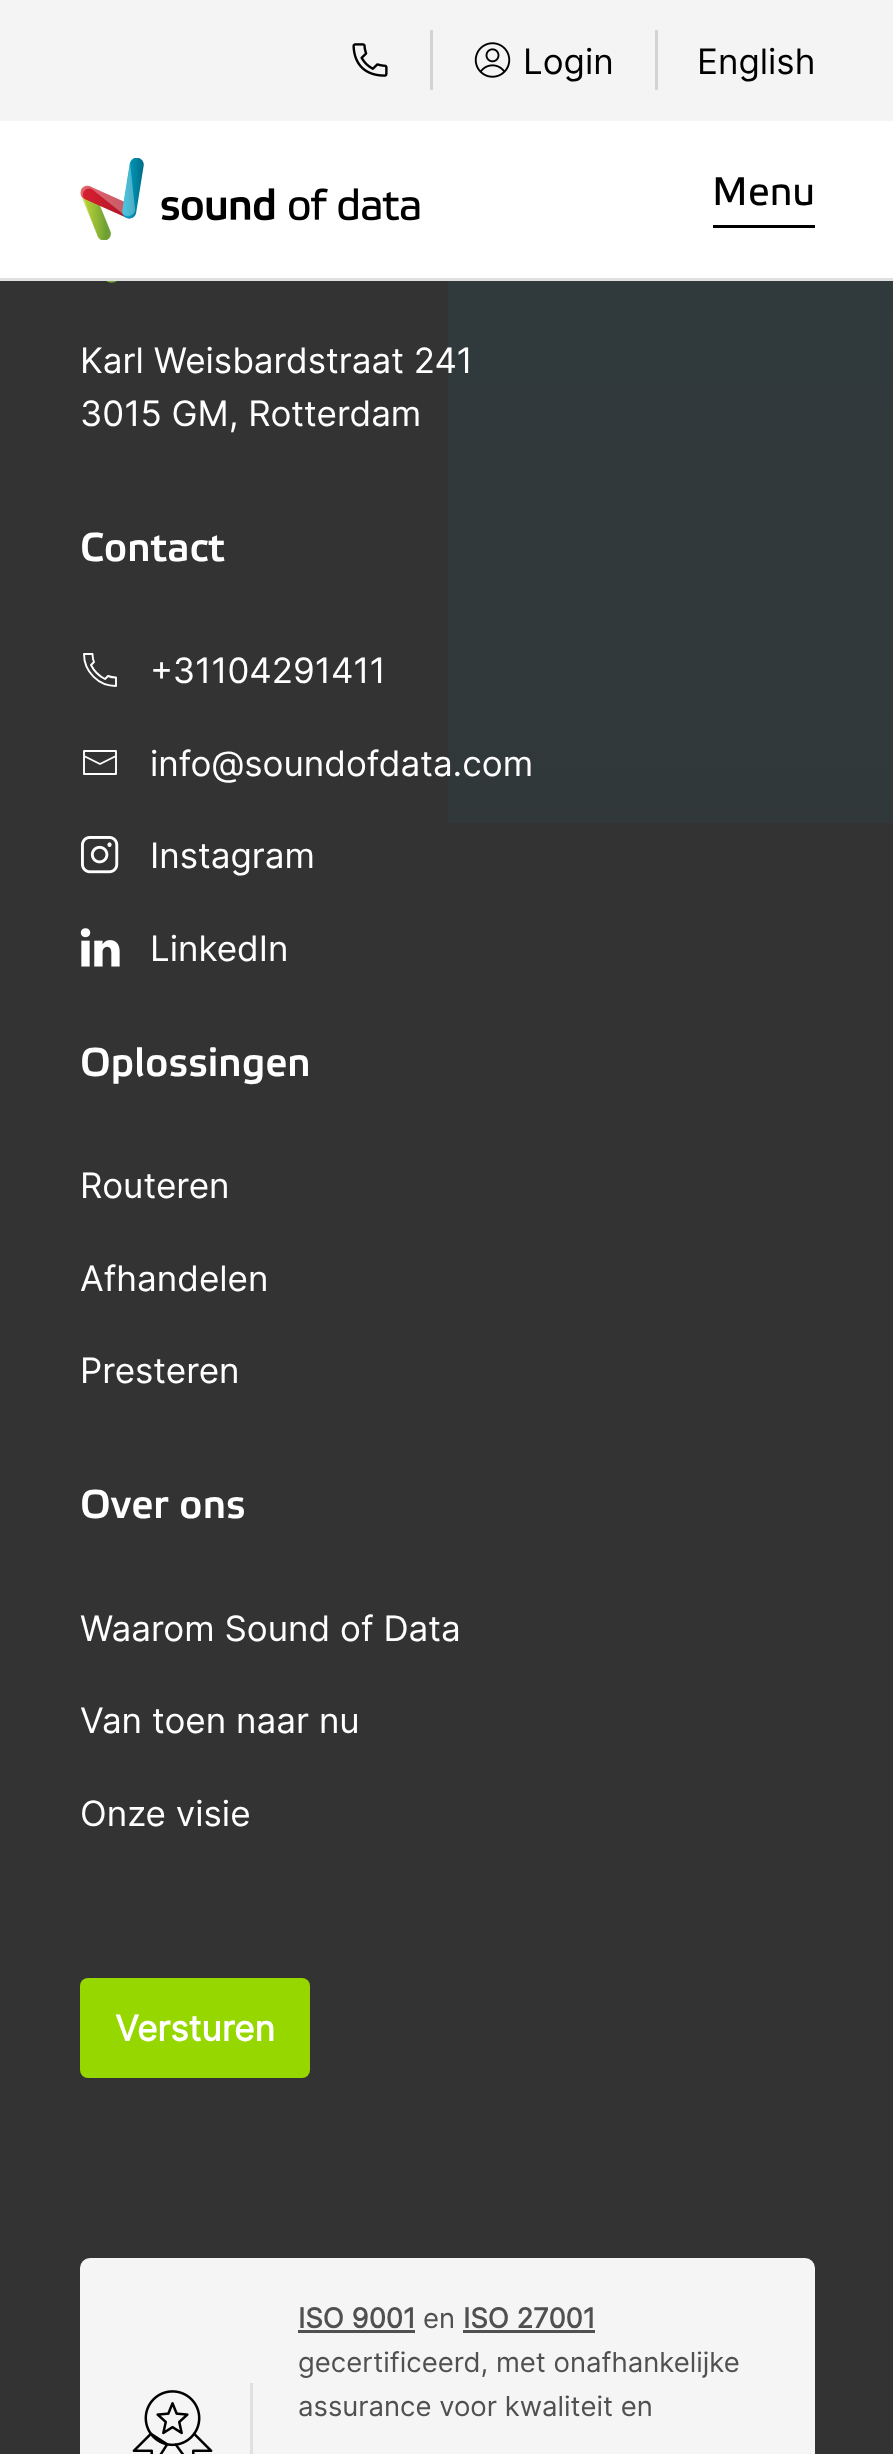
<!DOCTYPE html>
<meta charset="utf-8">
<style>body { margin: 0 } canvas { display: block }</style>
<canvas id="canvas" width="893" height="2454"></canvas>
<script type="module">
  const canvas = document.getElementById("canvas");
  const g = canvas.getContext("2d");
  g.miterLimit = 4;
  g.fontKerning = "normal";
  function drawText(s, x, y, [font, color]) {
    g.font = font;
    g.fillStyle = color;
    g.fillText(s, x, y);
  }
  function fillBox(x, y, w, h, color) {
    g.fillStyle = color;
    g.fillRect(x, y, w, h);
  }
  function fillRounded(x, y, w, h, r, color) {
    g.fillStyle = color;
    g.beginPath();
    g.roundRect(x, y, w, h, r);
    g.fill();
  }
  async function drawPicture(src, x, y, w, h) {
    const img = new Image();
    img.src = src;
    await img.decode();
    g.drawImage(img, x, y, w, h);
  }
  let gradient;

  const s1 = ["35px Inter", "#000000"];
  const s2 = ["40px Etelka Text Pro", "#000000"];
  const s3 = ["35px Inter", "#FFFFFF"];
  const s4 = ["500 40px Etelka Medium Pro", "#FFFFFF"];
  const s5 = ["bold 35px Inter", "#FFFFFF"];
  const s6 = ["bold 27.5px Inter", "#505050"];
  const s7 = ["27.5px Inter", "#505050"];

  fillBox(0, 0, 893, 2454, "#333333");
  fillBox(0, 0, 893, 121, "#F4F4F4");
  await drawPicture("pic1.png", 352, 43, 36, 34);
  fillBox(430, 30, 3, 60, "#D3D3D3");
  await drawPicture("pic2.png", 474, 42, 37, 36);
  drawText("Login", 523, 74, s1);
  fillBox(655, 30, 3, 60, "#D3D3D3");
  drawText("English", 697, 74, s1);
  fillBox(0, 121, 893, 157, "#FFFFFF");
  fillBox(0, 278, 893, 3, "#E0E0E0");
  await drawPicture("pic3.png", 80, 158, 340, 82);
  drawText("Menu", 712, 205, s2);
  fillBox(713, 225, 102, 3, "#000000");
  gradient = g.createLinearGradient(671, -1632, 671, 823);
  gradient.addColorStop(0, "rgba(0, 175, 215, 0.1)");
  gradient.addColorStop(1, "rgba(0, 175, 215, 0.04)");
  g.fillStyle = gradient;
  g.fillRect(448, 281, 445, 542);
  await drawPicture("pic4.png", 106, 281, 11, 2);
  drawText("Karl Weisbardstraat 241", 80, 373, s3);
  drawText("3015 GM, Rotterdam", 80, 426, s3);
  drawText("Contact", 80, 561, s4);
  g.beginPath();
  g.moveTo(84, 654);
  g.bezierCurveTo(84, 671.5, 98.5, 686, 116, 686);
  g.lineTo(116, 677.5);
  g.bezierCurveTo(113.5, 677.5, 110.5, 677, 108, 676);
  g.lineTo(105, 679);
  g.bezierCurveTo(99, 676, 94, 671, 91, 665);
  g.lineTo(94, 662);
  g.lineTo(93, 659);
  g.lineTo(92.5, 654);
  g.closePath();
  g.strokeStyle = "#FFFFFF";
  g.lineWidth = 1.9;
  g.lineCap = "round";
  g.lineJoin = "round";
  g.stroke();
  drawText("+31104291411", 150, 683, s3);
  g.beginPath();
  g.moveTo(84, 751);
  g.lineTo(116, 751);
  g.lineTo(116, 774);
  g.lineTo(84, 774);
  g.closePath();
  g.moveTo(84, 756);
  g.lineTo(100, 764);
  g.lineTo(116, 756);
  g.stroke();
  drawText("info@soundofdata.com", 150, 776, s3);
  await drawPicture("pic5.png", 81, 836, 38, 38);
  drawText("Instagram", 150, 868, s3);
  await drawPicture("pic6.png", 80, 928, 40, 39);
  drawText("LinkedIn", 150, 961, s3);
  drawText("Oplossingen", 80, 1076, s4);
  drawText("Routeren", 80, 1198, s3);
  drawText("Afhandelen", 80, 1291, s3);
  drawText("Presteren", 80, 1383, s3);
  drawText("Over ons", 80, 1518, s4);
  drawText("Waarom Sound of Data", 80, 1641, s3);
  drawText("Van toen naar nu", 80, 1733, s3);
  drawText("Onze visie", 80, 1826, s3);
  fillRounded(80, 1978, 230, 100, 8, "#97D700");
  drawText("Versturen", 115, 2041, s5);
  fillRounded(80, 2258, 735, 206, 10, "#F5F5F5");
  fillBox(250, 2383, 3, 71, "#E0E0E0");
  await drawPicture("pic7.png", 132, 2390, 81, 64);
  drawText("ISO 9001", 298, 2328, s6);
  fillBox(298, 2330, 117, 3, "#505050");
  drawText("en", 423, 2328, s7);
  drawText("ISO 27001", 463, 2328, s6);
  fillBox(463, 2330, 132, 3, "#505050");
  drawText("gecertificeerd, met onafhankelijke", 298, 2372, s7);
  drawText("assurance voor kwaliteit en", 298, 2416, s7);
</script>
